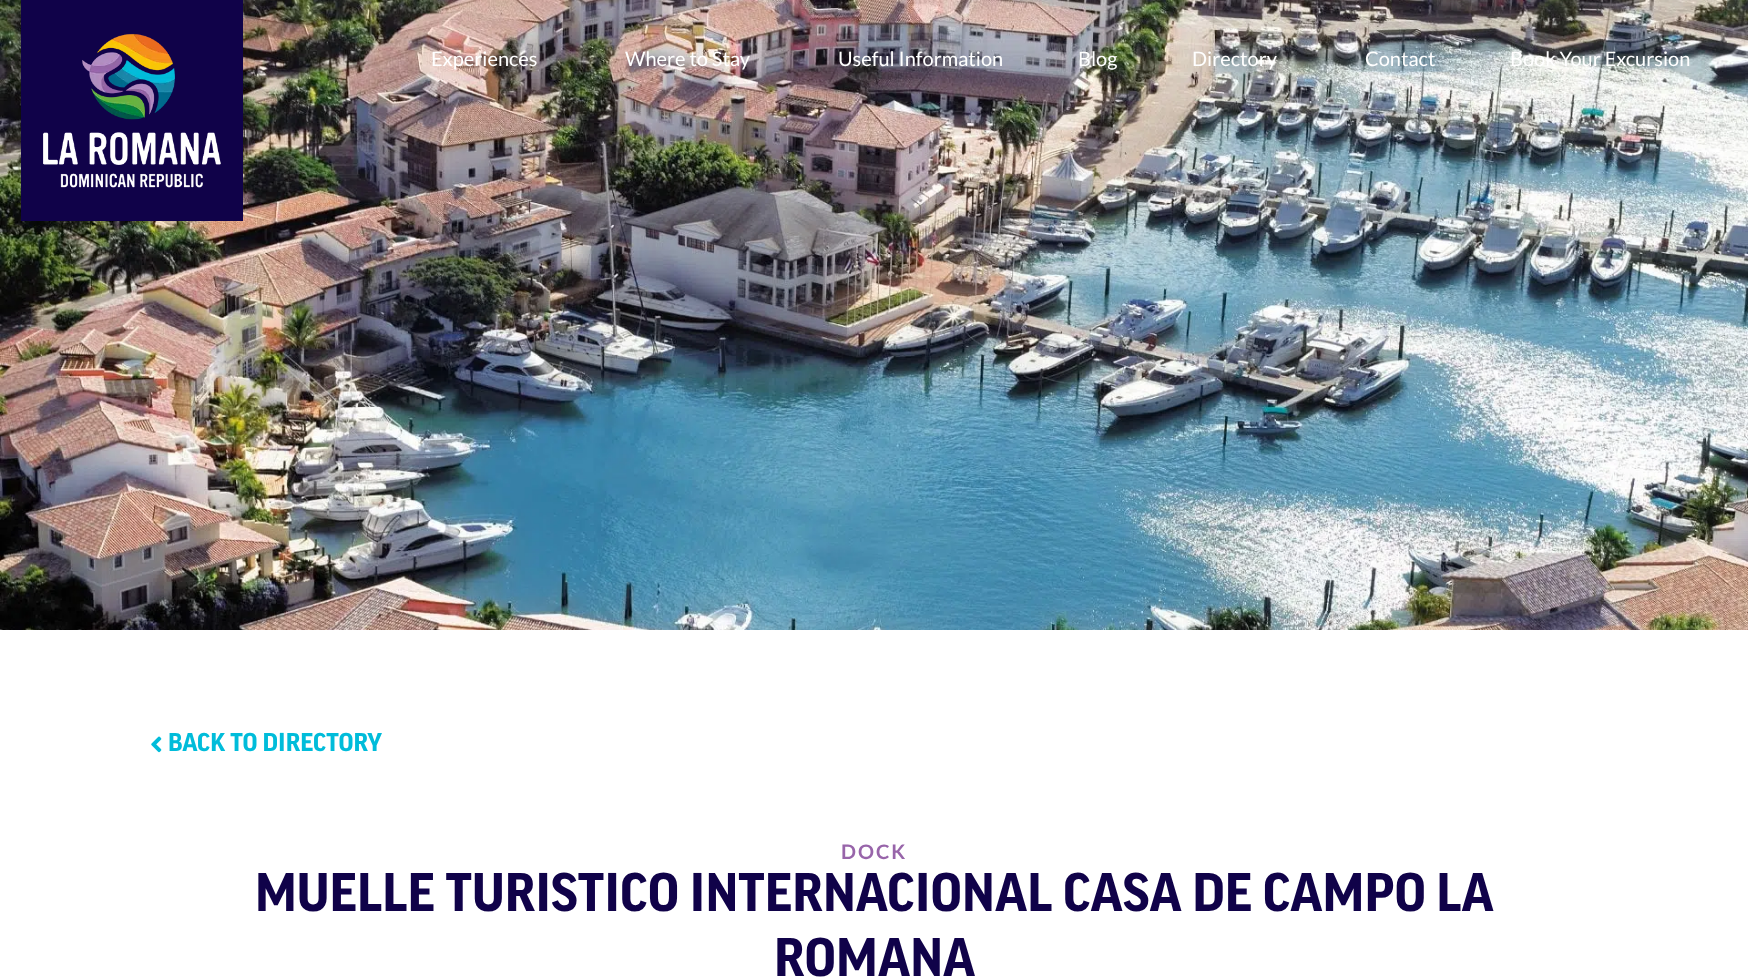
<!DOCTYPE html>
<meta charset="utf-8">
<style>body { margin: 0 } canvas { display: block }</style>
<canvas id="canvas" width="1748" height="978"></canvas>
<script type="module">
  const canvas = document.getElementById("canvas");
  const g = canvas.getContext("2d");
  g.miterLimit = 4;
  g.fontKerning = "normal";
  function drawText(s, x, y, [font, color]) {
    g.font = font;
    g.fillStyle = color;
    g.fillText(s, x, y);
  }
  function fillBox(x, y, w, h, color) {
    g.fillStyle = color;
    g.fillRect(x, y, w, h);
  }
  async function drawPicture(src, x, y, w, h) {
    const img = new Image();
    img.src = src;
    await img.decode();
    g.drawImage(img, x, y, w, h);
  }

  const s1 = ["20px Lato", "#FFFFFF"];
  const s2 = ["bold 25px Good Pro", "#00BCDA"];
  const s3 = ["bold 20px Lato", "#9865AA"];
  const s4 = ["bold 52.5px Good Pro", "#100249"];

  fillBox(0, 0, 1748, 978, "#FFFFFF");
  await drawPicture("pic2.png", 0, 0, 1748, 630);
  fillBox(21, 0, 222, 221, "#100249");
  await drawPicture("pic1.png", 43, 33, 178, 155);
  drawText("Experiences", 431, 66, s1);
  drawText("Where to Stay", 625, 66, s1);
  drawText("Useful Information", 838, 66, s1);
  drawText("Blog", 1078, 66, s1);
  drawText("Directory", 1192, 66, s1);
  drawText("Contact", 1365, 66, s1);
  drawText("Book Your Excursion", 1510, 66, s1);
  await drawPicture("pic3.png", 151, 736, 11, 17);
  drawText("BACK TO DIRECTORY", 168, 751, s2);
  g.letterSpacing = "2px";
  drawText("DOCK", 841, 859, s3);
  g.letterSpacing = "0px";
  drawText("MUELLE TURISTICO INTERNACIONAL CASA DE CAMPO LA", 255, 911, s4);
  drawText("ROMANA", 774, 976, s4);
</script>
